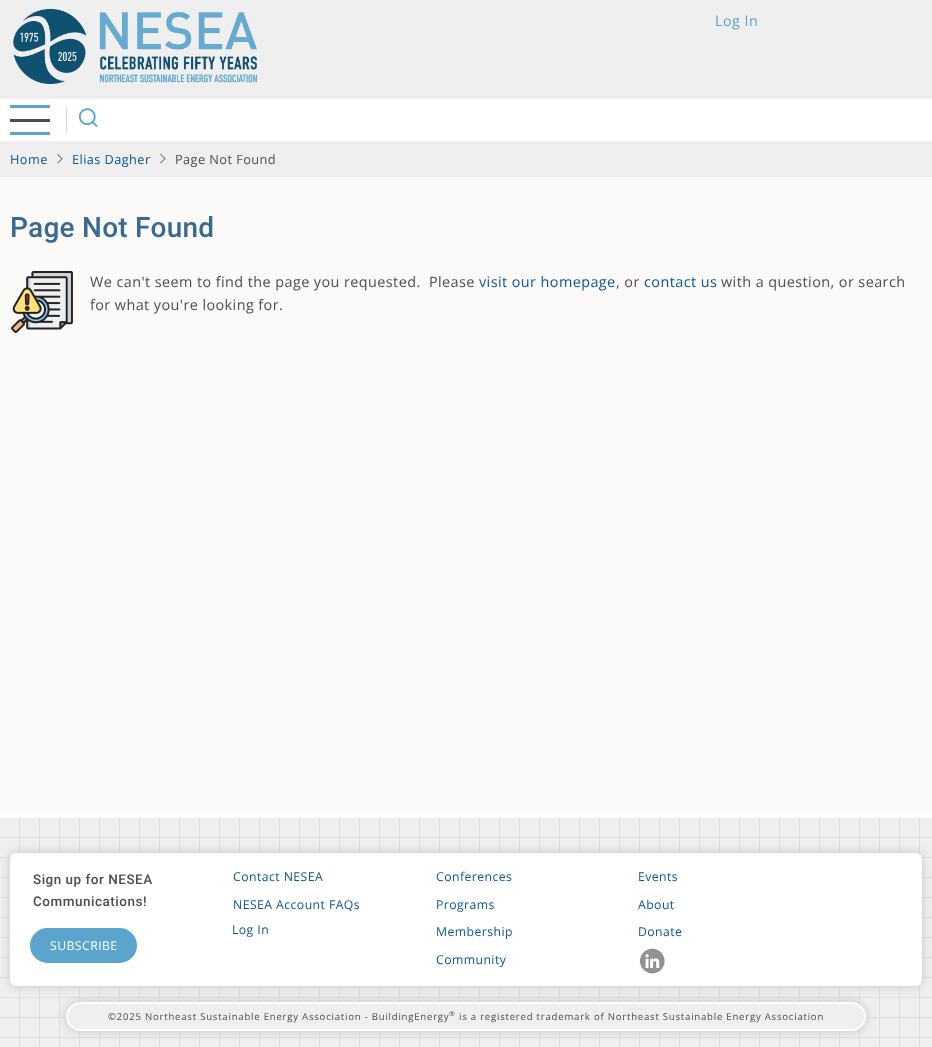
<!DOCTYPE html>
<meta charset="utf-8">
<style>body { margin: 0 } canvas { display: block }</style>
<canvas id="canvas" width="932" height="1047"></canvas>
<script type="module">
  const canvas = document.getElementById("canvas");
  const g = canvas.getContext("2d");
  g.miterLimit = 4;
  g.fontKerning = "normal";
  function drawText(s, x, y, [font, color]) {
    g.font = font;
    g.fillStyle = color;
    g.fillText(s, x, y);
  }
  function fillBox(x, y, w, h, color) {
    g.fillStyle = color;
    g.fillRect(x, y, w, h);
  }
  function fillRounded(x, y, w, h, r, color) {
    g.fillStyle = color;
    g.beginPath();
    g.roundRect(x, y, w, h, r);
    g.fill();
  }
  async function drawPicture(src, x, y, w, h) {
    const img = new Image();
    img.src = src;
    await img.decode();
    g.drawImage(img, x, y, w, h);
  }

  const s1 = ["14.4px Open Sans", "#5BA5CD"];
  const s2 = ["12.75px Open Sans", "#0C5593"];
  const s3 = ["12.75px Open Sans", "#4D4D4D"];
  const s4 = ["500 28px Roboto", "#386991"];
  const s5 = ["14.4px Open Sans", "#4D4D4D"];
  const s6 = ["14.4px Open Sans", "#0C5593"];
  const s7 = ["500 13.5px Roboto", "#4D4D4D"];
  const s8 = ["12.25px Open Sans", "#FFFFFF"];
  const s9 = ["12.25px Open Sans", "#0C5593"];
  const s10 = ["9.6px Open Sans", "#4D4D4D"];
  const s11 = ["7px Open Sans", "#4D4D4D"];

  fillBox(0, 0, 932, 1047, "#FBFAF9");
  fillBox(0, 0, 932, 99, "#EFEFEF");
  await drawPicture("pic1.png", 13, 9, 244, 75);
  g.letterSpacing = "0.43px";
  drawText("Log In", 715, 26, s1);
  fillBox(0, 99, 932, 42, "#FFFFFF");
  fillBox(10, 105, 40, 3, "#5BA5CD");
  fillBox(10, 119, 40, 3, "#4D4D4D");
  fillBox(10, 132, 40, 3, "#5BA5CD");
  fillBox(66, 107, 1, 26, "#DBDBD3");
  await drawPicture("pic2.png", 78, 108, 20, 19);
  fillBox(0, 141, 932, 36, "#EFEFEF");
  drawText("Home", 10, 164, s2);
  await drawPicture("pic3.png", 57, 154, 6, 10);
  drawText("Elias Dagher", 72, 164, s2);
  await drawPicture("pic3.png", 160, 154, 6, 10);
  drawText("Page Not Found", 175, 164, s3);
  g.letterSpacing = "0.25px";
  drawText("Page Not Found", 10, 237, s4);
  await drawPicture("pic4.png", 11, 271, 62, 62);
  g.letterSpacing = "0.43px";
  drawText("We can't seem to find the page you requested.  Please", 90, 287, s5);
  drawText("visit our homepage", 479, 287, s6);
  drawText(", or", 616, 287, s5);
  drawText("contact us", 644, 287, s6);
  drawText("with a question, or search", 721, 287, s5);
  drawText("for what you're looking for.", 90, 310, s5);
  fillBox(0, 818, 932, 229, "#EFEFEF");
  await drawPicture("pic5.png", 0, 818, 932, 229);
  fillBox(0, 814, 932, 4, "#FFFFFF");
  g.fillStyle = "#CCCCCC";
  g.filter = "blur(4px)";
  g.beginPath();
  g.roundRect(9, 852, 914, 135, 7);
  g.fill();
  g.filter = "none";
  fillRounded(10, 853, 912, 133, 6, "#FFFFFF");
  g.letterSpacing = "0.5px";
  drawText("Sign up for NESEA", 33, 884, s7);
  drawText("Communications!", 33, 906, s7);
  g.fillStyle = "#5BA5CD";
  g.beginPath();
  g.roundRect(28.5, 926.5, 110, 38, 19);
  g.fill();
  g.strokeStyle = "#FFFFFF";
  g.lineWidth = 3;
  g.stroke();
  g.letterSpacing = "0.43px";
  drawText("SUBSCRIBE", 50, 950, s8);
  drawText("Contact NESEA", 233, 881, s9);
  drawText("NESEA Account FAQs", 233, 909, s9);
  drawText("Log In", 232, 934, s9);
  drawText("Conferences", 436, 881, s9);
  drawText("Programs", 436, 909, s9);
  drawText("Membership", 436, 936, s9);
  drawText("Community", 436, 964, s9);
  drawText("Events", 638, 881, s9);
  drawText("About", 638, 909, s9);
  drawText("Donate", 638, 936, s9);
  await drawPicture("pic6.png", 639, 948, 26, 26);
  g.fillStyle = "#CCCCCC";
  g.filter = "blur(4px)";
  g.beginPath();
  g.roundRect(65, 1001, 802, 31, 15.5);
  g.fill();
  g.filter = "none";
  g.fillStyle = "#EFEFEF";
  g.beginPath();
  g.roundRect(67, 1003, 798, 27, 13.5);
  g.fill();
  g.lineWidth = 2;
  g.stroke();
  g.letterSpacing = "0.77px";
  drawText("©2025 Northeast Sustainable Energy Association - BuildingEnergy", 108, 1020, s10);
  drawText("®", 449, 1016, s11);
  drawText("is a registered trademark of Northeast Sustainable Energy Association", 459, 1020, s10);
</script>
